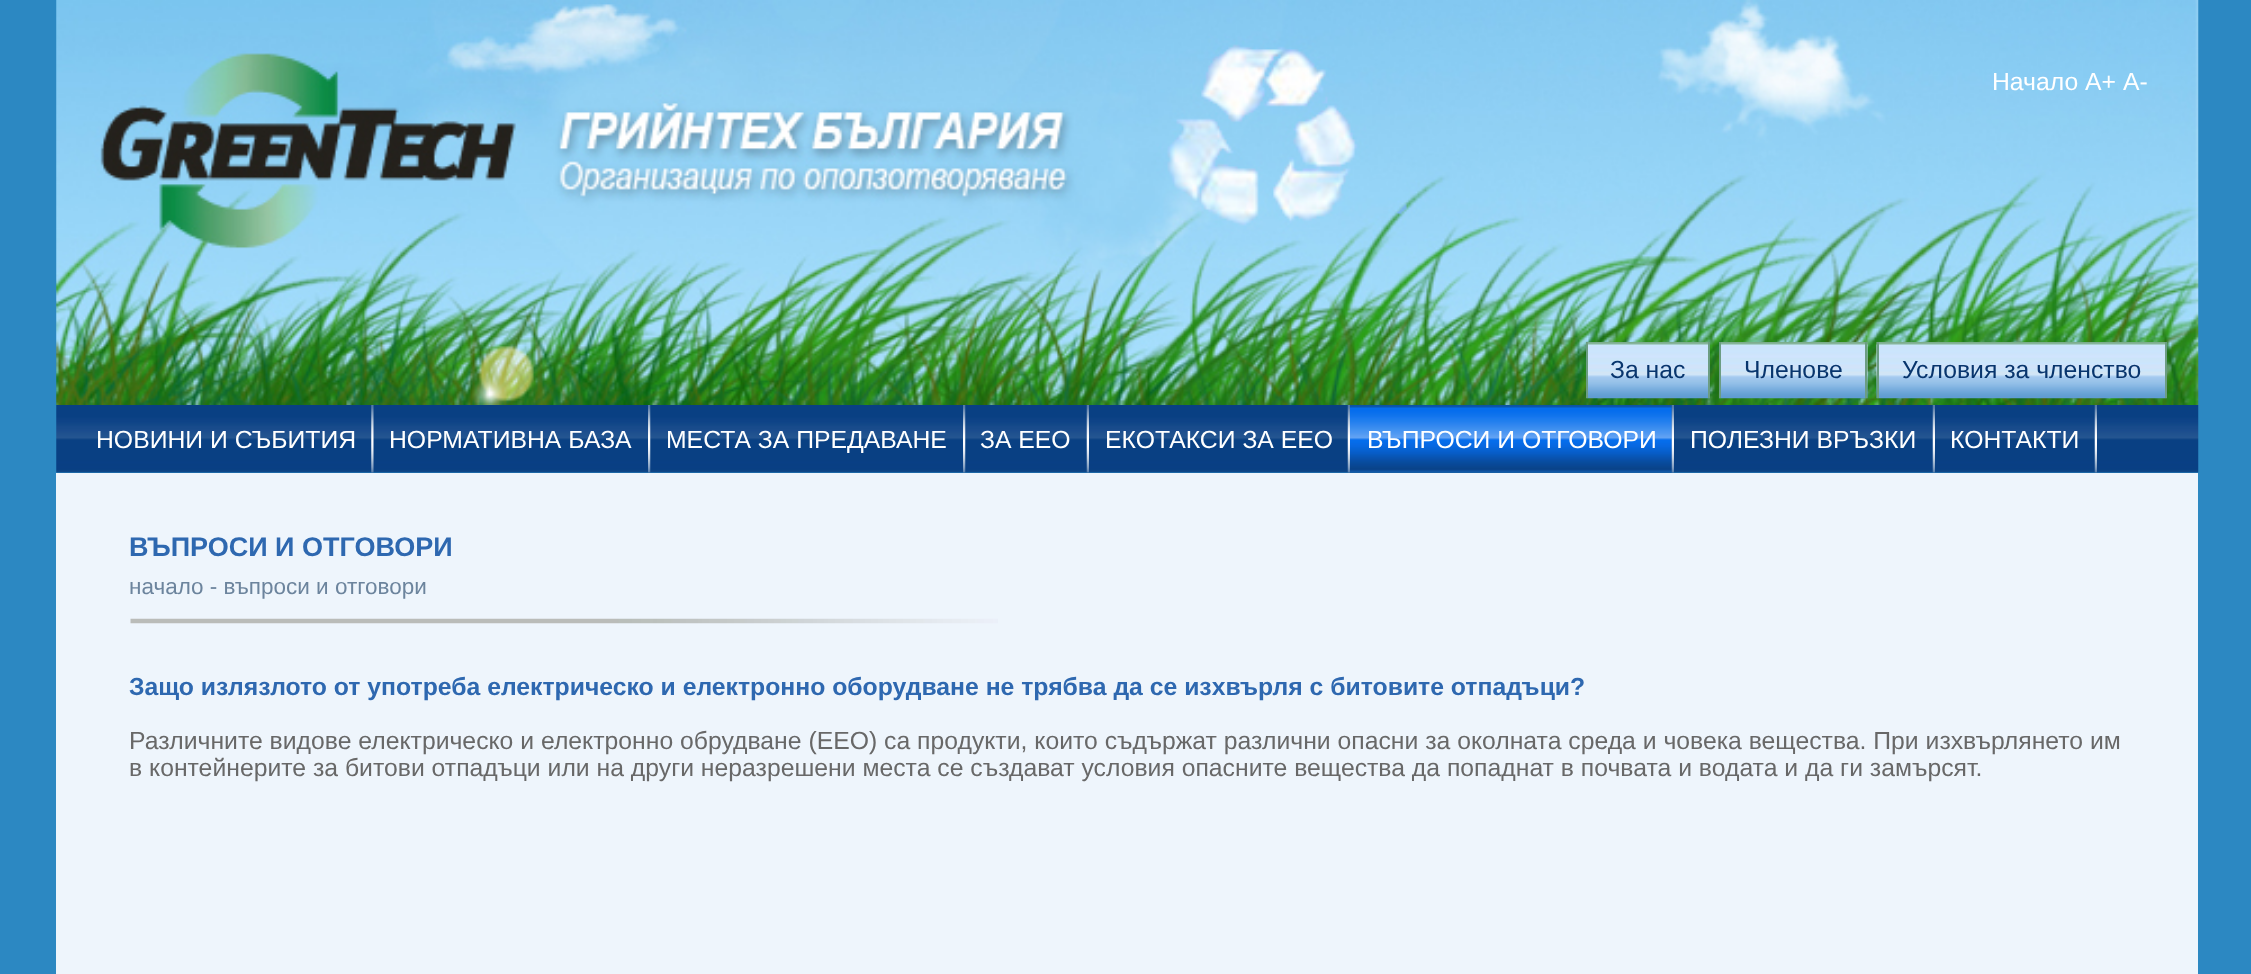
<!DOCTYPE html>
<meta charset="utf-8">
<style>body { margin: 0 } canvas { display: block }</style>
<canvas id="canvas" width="2251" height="974"></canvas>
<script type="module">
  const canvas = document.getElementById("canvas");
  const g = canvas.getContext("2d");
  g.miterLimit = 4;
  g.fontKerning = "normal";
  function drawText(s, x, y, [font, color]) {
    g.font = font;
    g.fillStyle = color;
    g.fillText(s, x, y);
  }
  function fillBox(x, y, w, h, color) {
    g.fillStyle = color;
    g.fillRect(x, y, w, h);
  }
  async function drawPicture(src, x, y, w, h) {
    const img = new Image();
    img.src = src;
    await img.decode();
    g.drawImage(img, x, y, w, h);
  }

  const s1 = ["24.75px Liberation Sans", "#FFFFFF"];
  const s2 = ["24.75px Liberation Sans", "#08356D"];
  const s3 = ["bold 27px Liberation Sans", "#2E68B0"];
  const s4 = ["22.5px Liberation Sans", "#6C849D"];
  const s5 = ["bold 24.75px Liberation Sans", "#2E68B0"];
  const s6 = ["24.75px Liberation Sans", "#686868"];

  fillBox(0, 0, 2251, 974, "#2C88C2");
  await drawPicture("pic1.png", 56, 0, 2143, 405);
  drawText("Начало А+ А-", 1992, 90, s1);
  await drawPicture("pic2.png", 1586, 342, 124, 57);
  fillBox(1708, 342, 2, 56, "#6C9D83");
  fillBox(1586, 342, 2, 56, "#6C9D83");
  drawText("За нас", 1610, 378, s2);
  await drawPicture("pic3.png", 1719, 342, 149, 57);
  fillBox(1865, 342, 2, 56, "#6C9D83");
  fillBox(1719, 342, 2, 56, "#6C9D83");
  drawText("Членове", 1744, 378, s2);
  await drawPicture("pic4.png", 1876, 342, 291, 57);
  fillBox(2165, 342, 2, 56, "#6C9D83");
  fillBox(1877, 342, 2, 56, "#6C9D83");
  drawText("Условия за членство", 1902, 378, s2);
  await drawPicture("pic5.png", 56, 405, 2143, 68);
  drawText("НОВИНИ И СЪБИТИЯ", 96, 448, s1);
  await drawPicture("pic6.png", 371, 405, 3, 68);
  drawText("НОРМАТИВНА БАЗА", 389, 448, s1);
  await drawPicture("pic7.png", 648, 405, 3, 68);
  drawText("МЕСТА ЗА ПРЕДАВАНЕ", 666, 448, s1);
  await drawPicture("pic7.png", 963, 405, 3, 68);
  drawText("ЗА EEO", 980, 448, s1);
  await drawPicture("pic8.png", 1086, 405, 3, 68);
  drawText("ЕКОТАКСИ ЗА ЕЕО", 1105, 448, s1);
  await drawPicture("pic8.png", 1347, 405, 3, 68);
  await drawPicture("pic9.png", 1350, 405, 322, 68);
  drawText("ВЪПРОСИ И ОТГОВОРИ", 1367, 448, s1);
  await drawPicture("pic10.png", 1671, 405, 3, 68);
  drawText("ПОЛЕЗНИ ВРЪЗКИ", 1690, 448, s1);
  await drawPicture("pic8.png", 1932, 405, 3, 68);
  drawText("КОНТАКТИ", 1950, 448, s1);
  await drawPicture("pic8.png", 2094, 405, 3, 68);
  fillBox(56, 473, 2142, 501, "#EEF5FC");
  await drawPicture("pic11.png", 130, 618, 868, 6);
  drawText("ВЪПРОСИ И ОТГОВОРИ", 129, 556, s3);
  drawText("начало - въпроси и отговори", 129, 594, s4);
  drawText("Защо излязлото от употреба електрическо и електронно оборудване не трябва да се изхвърля с битовите отпадъци?", 129, 695, s5);
  drawText("Различните видове електрическо и електронно обрудване (ЕЕО) са продукти, които съдържат различни опасни за околната среда и човека вещества. При изхвърлянето им", 129, 749, s6);
  drawText("в контейнерите за битови отпадъци или на други неразрешени места се създават условия опасните вещества да попаднат в почвата и водата и да ги замърсят.", 129, 776, s6);
</script>
